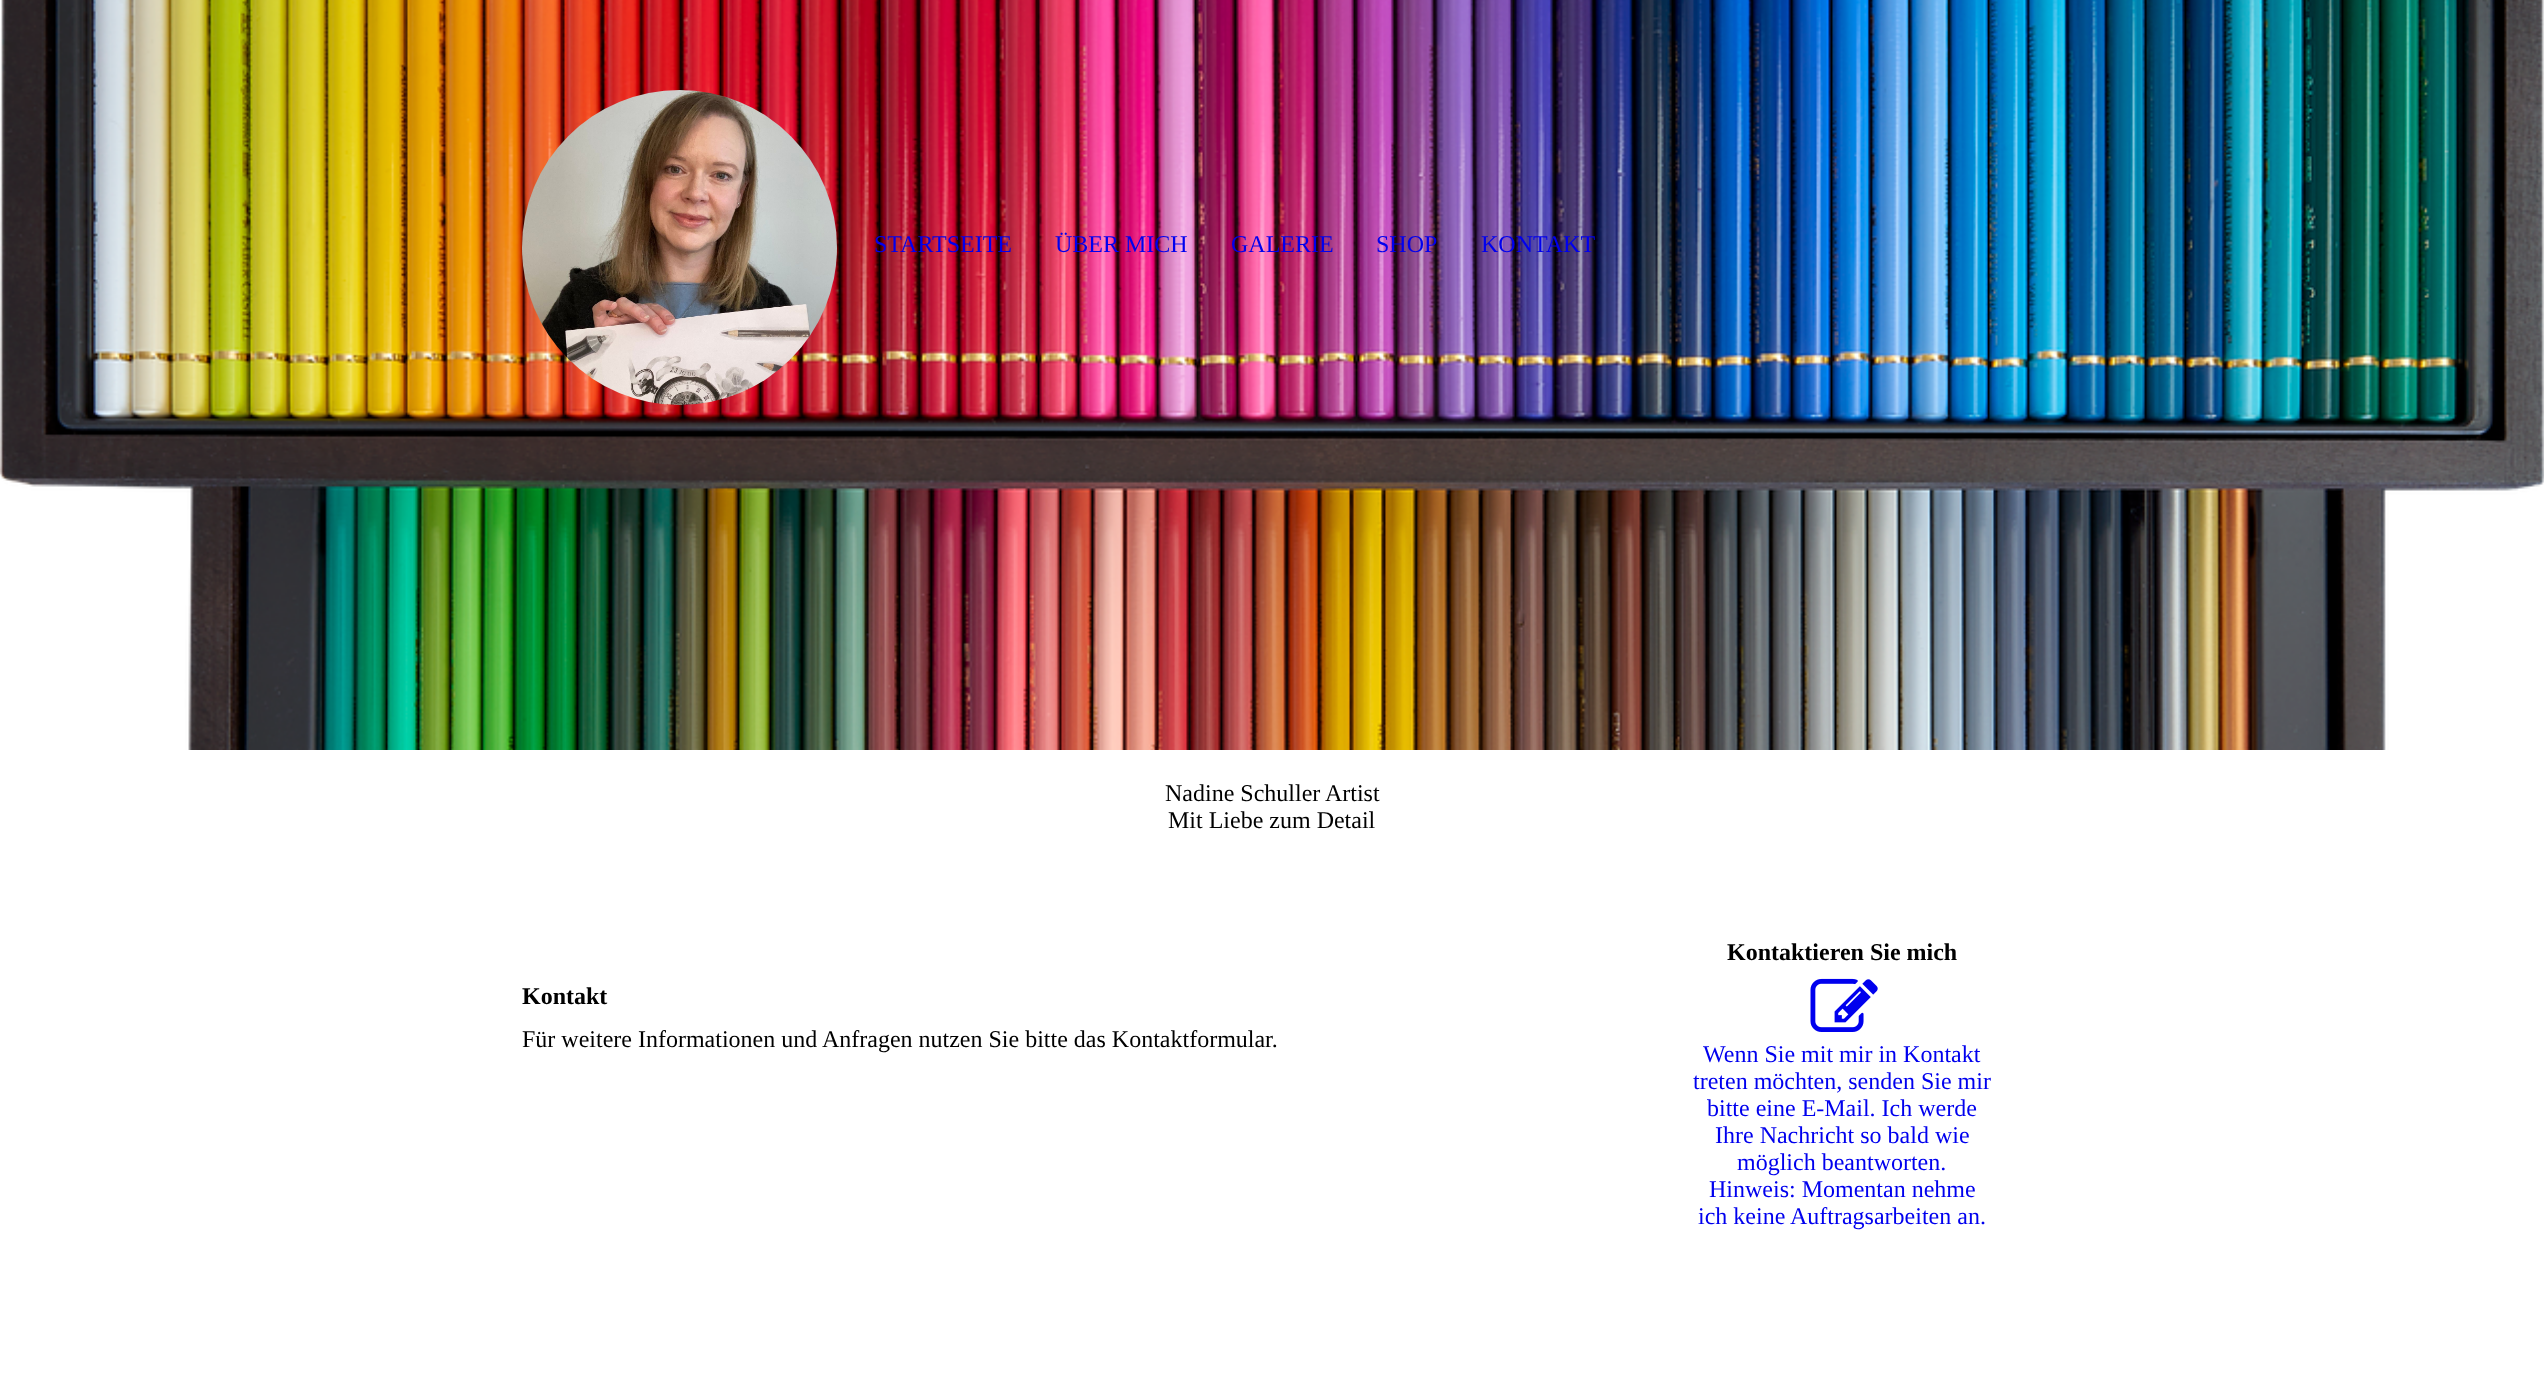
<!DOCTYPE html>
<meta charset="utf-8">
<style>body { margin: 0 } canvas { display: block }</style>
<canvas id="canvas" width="2544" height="1394"></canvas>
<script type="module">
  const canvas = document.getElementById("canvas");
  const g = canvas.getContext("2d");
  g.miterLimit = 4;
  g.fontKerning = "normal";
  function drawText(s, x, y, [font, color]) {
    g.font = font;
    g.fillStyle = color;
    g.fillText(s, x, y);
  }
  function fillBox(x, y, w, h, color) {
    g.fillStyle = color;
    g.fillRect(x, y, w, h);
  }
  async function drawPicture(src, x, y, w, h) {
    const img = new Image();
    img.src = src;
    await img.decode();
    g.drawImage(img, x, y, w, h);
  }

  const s1 = ["24px Liberation Serif", "#0000EE"];
  const s2 = ["24px Liberation Serif", "#000000"];
  const s3 = ["bold 24px Liberation Serif", "#000000"];

  fillBox(0, 0, 2544, 1394, "#FFFFFF");
  await drawPicture("pic1.png", 0, 0, 2544, 750);
  await drawPicture("pic2.png", 522, 90, 315, 315);
  drawText("STARTSEITE", 874, 252, s1);
  drawText("ÜBER MICH", 1055, 252, s1);
  drawText("GALERIE", 1231, 252, s1);
  drawText("SHOP", 1376, 252, s1);
  drawText("KONTAKT", 1481, 252, s1);
  drawText("Nadine Schuller Artist", 1165, 801, s2);
  drawText("Mit Liebe zum Detail", 1168, 828, s2);
  drawText("Kontakt", 522, 1004, s3);
  drawText("Für weitere Informationen und Anfragen nutzen Sie bitte das Kontaktformular.", 522, 1047, s2);
  drawText("Kontaktieren Sie mich", 1727, 960, s3);
  await drawPicture("pic3.png", 1810, 978, 68, 54);
  drawText("Wenn Sie mit mir in Kontakt", 1703, 1062, s1);
  drawText("treten möchten, senden Sie mir", 1693, 1089, s1);
  drawText("bitte eine E-Mail. Ich werde", 1707, 1116, s1);
  drawText("Ihre Nachricht so bald wie", 1715, 1143, s1);
  drawText("möglich beantworten.", 1737, 1170, s1);
  drawText("Hinweis: Momentan nehme", 1709, 1197, s1);
  drawText("ich keine Auftragsarbeiten an.", 1698, 1224, s1);
</script>
